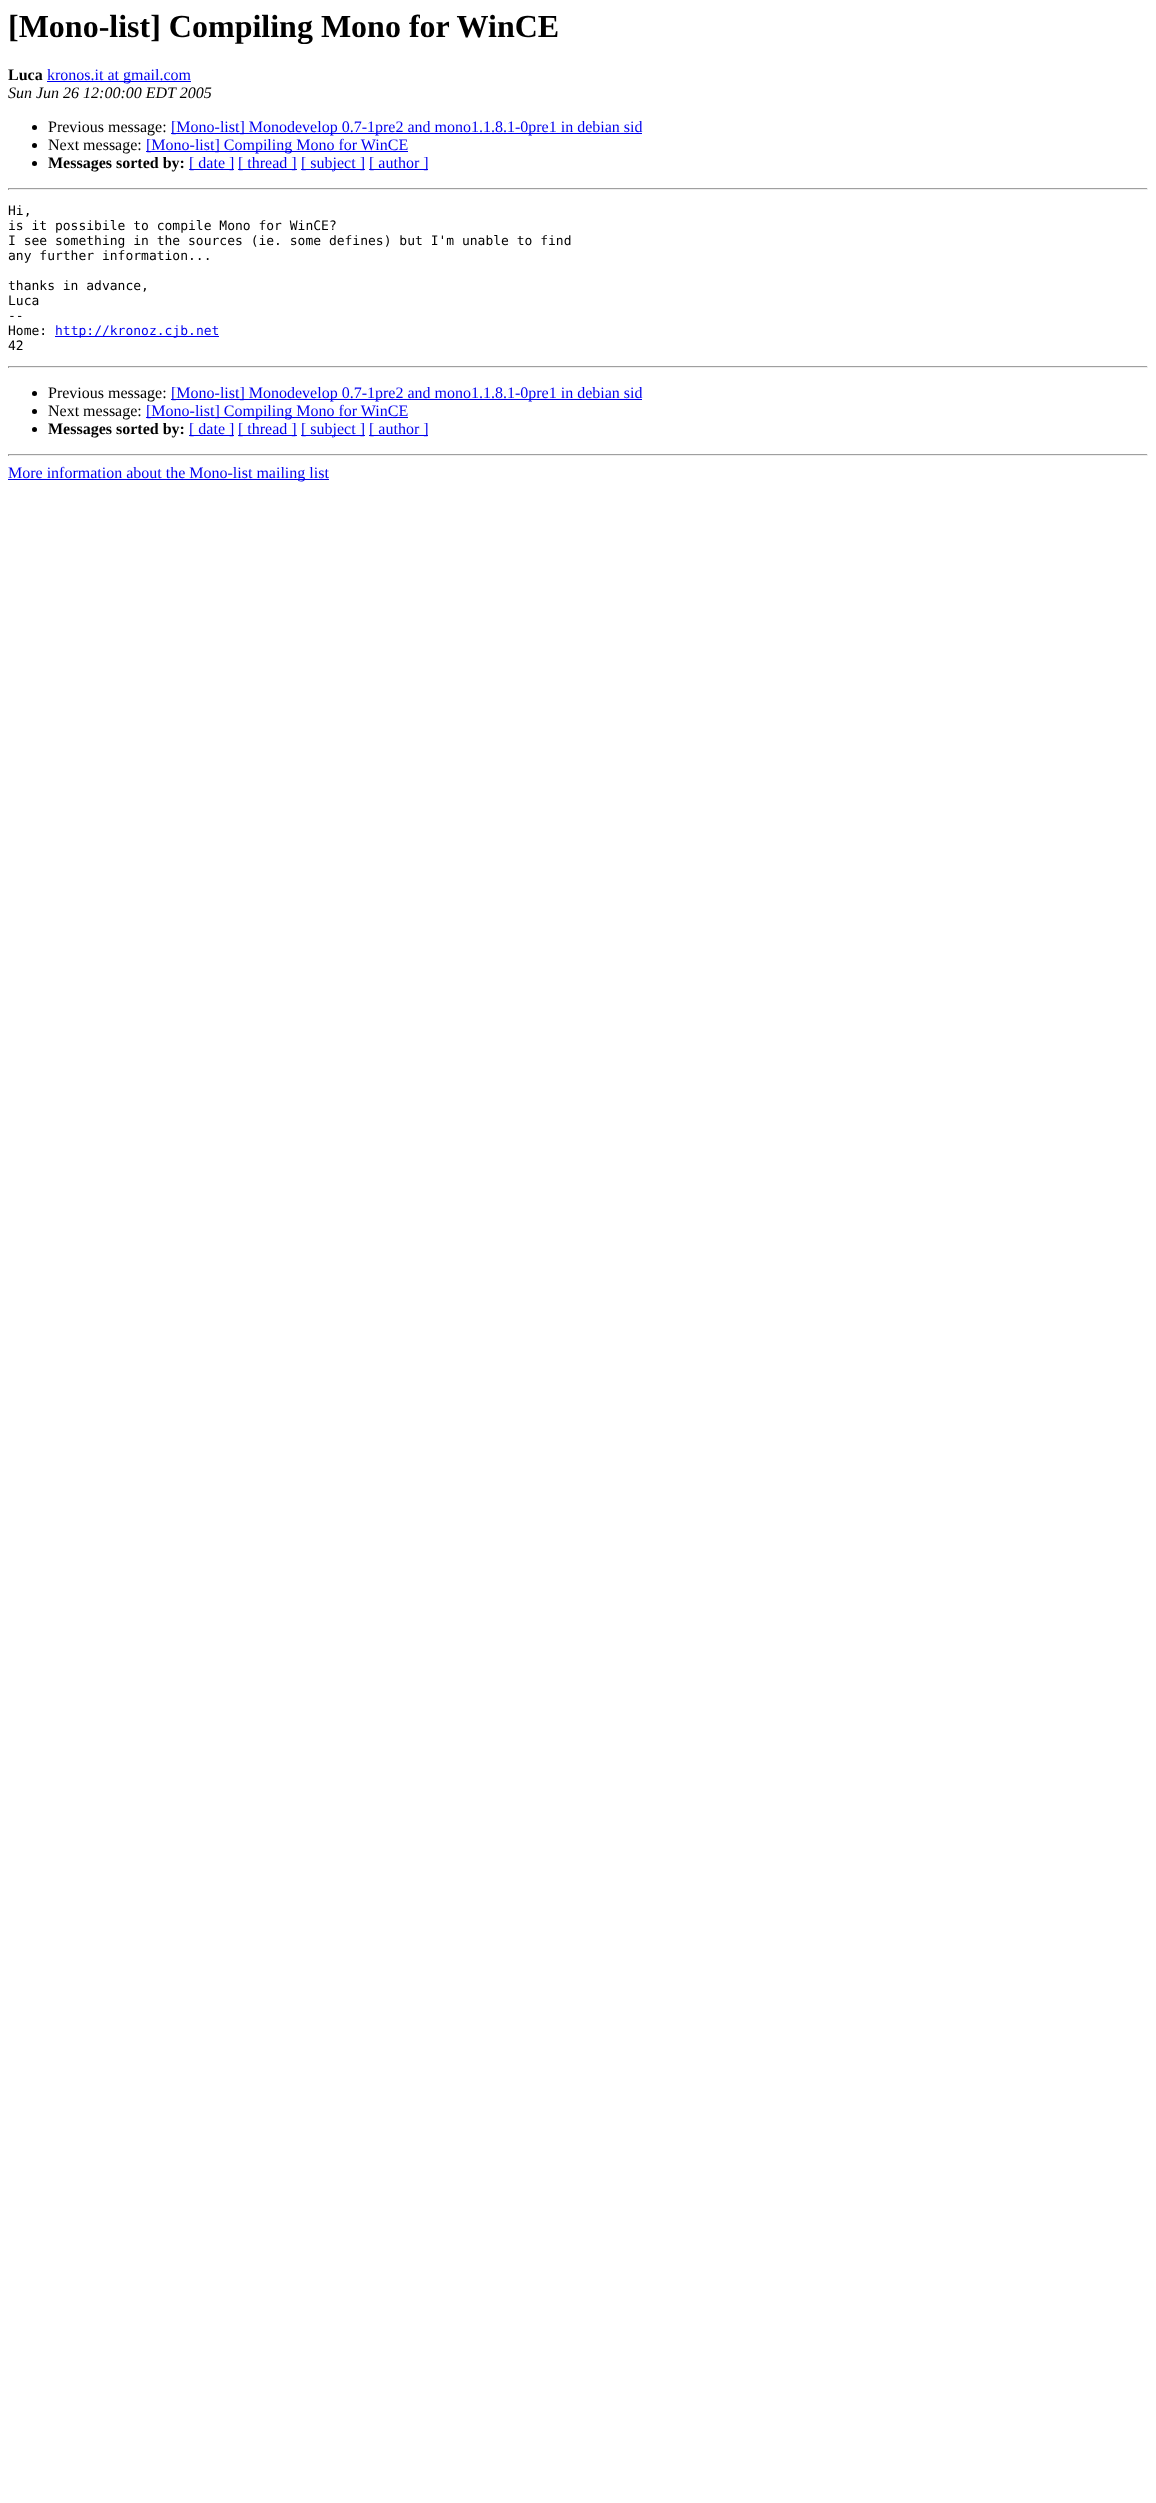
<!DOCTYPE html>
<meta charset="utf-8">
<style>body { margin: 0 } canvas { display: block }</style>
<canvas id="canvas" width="1156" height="2503"></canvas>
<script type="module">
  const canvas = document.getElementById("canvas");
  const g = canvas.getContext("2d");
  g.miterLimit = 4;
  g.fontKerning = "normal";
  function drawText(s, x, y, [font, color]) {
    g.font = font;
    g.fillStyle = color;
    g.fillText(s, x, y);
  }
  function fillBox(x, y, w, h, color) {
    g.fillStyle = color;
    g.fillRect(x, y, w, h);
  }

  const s1 = ["bold 32px Liberation Serif", "#000000"];
  const s2 = ["bold 16px Liberation Serif", "#000000"];
  const s3 = ["16px Liberation Serif", "#0000EE"];
  const s4 = ["italic 16px Liberation Serif", "#000000"];
  const s5 = ["16px Liberation Serif", "#000000"];
  const s6 = ["13px DejaVu Sans Mono", "#000000"];
  const s7 = ["13px DejaVu Sans Mono", "#0000EE"];

  fillBox(0, 0, 1156, 2503, "#FFFFFF");
  drawText("[Mono-list] Compiling Mono for WinCE", 8, 37, s1);
  drawText("Luca", 8, 80, s2);
  fillBox(47, 81, 144, 1, "#0000EE");
  drawText("kronos.it at gmail.com", 47, 80, s3);
  drawText("Sun Jun 26 12:00:00 EDT 2005", 8, 98, s4);
  g.beginPath();
  g.arc(34.5, 127.5, 2.5, 0, Math.PI * 2);
  g.fill();
  drawText("Previous message:", 48, 132, s5);
  fillBox(171, 133, 471, 1, "#0000EE");
  drawText("[Mono-list] Monodevelop 0.7-1pre2 and mono1.1.8.1-0pre1 in debian sid", 171, 132, s3);
  g.fillStyle = "#000000";
  g.beginPath();
  g.arc(34.5, 145.5, 2.5, 0, Math.PI * 2);
  g.fill();
  drawText("Next message:", 48, 150, s5);
  fillBox(146, 151, 262, 1, "#0000EE");
  drawText("[Mono-list] Compiling Mono for WinCE", 146, 150, s3);
  g.fillStyle = "#000000";
  g.beginPath();
  g.arc(34.5, 163.5, 2.5, 0, Math.PI * 2);
  g.fill();
  drawText("Messages sorted by:", 48, 168, s2);
  fillBox(189, 169, 45, 1, "#0000EE");
  drawText("[ date ]", 189, 168, s3);
  fillBox(238, 169, 59, 1, "#0000EE");
  drawText("[ thread ]", 238, 168, s3);
  fillBox(301, 169, 64, 1, "#0000EE");
  drawText("[ subject ]", 301, 168, s3);
  fillBox(369, 169, 59, 1, "#0000EE");
  drawText("[ author ]", 369, 168, s3);
  fillBox(8, 188, 1140, 1, "#9F9F9F");
  fillBox(1147, 188, 1, 2, "#EEEEEE");
  fillBox(8, 189, 1140, 1, "#EEEEEE");
  fillBox(8, 188, 1, 2, "#9F9F9F");
  drawText("Hi,", 8, 215, s6);
  drawText("is it possibile to compile Mono for WinCE?", 8, 230, s6);
  drawText("I see something in the sources (ie. some defines) but I'm unable to find", 8, 245, s6);
  drawText("any further information...", 8, 260, s6);
  drawText("thanks in advance,", 8, 290, s6);
  drawText("Luca", 8, 305, s6);
  drawText("--", 8, 320, s6);
  drawText("Home:", 8, 335, s6);
  fillBox(55, 336, 164, 1, "#0000EE");
  drawText("http://kronoz.cjb.net", 55, 335, s7);
  drawText("42", 8, 350, s6);
  fillBox(8, 366, 1140, 1, "#9F9F9F");
  fillBox(1147, 366, 1, 2, "#EEEEEE");
  fillBox(8, 367, 1140, 1, "#EEEEEE");
  fillBox(8, 366, 1, 2, "#9F9F9F");
  g.fillStyle = "#000000";
  g.beginPath();
  g.arc(34.5, 393.5, 2.5, 0, Math.PI * 2);
  g.fill();
  drawText("Previous message:", 48, 398, s5);
  fillBox(171, 399, 471, 1, "#0000EE");
  drawText("[Mono-list] Monodevelop 0.7-1pre2 and mono1.1.8.1-0pre1 in debian sid", 171, 398, s3);
  g.fillStyle = "#000000";
  g.beginPath();
  g.arc(34.5, 411.5, 2.5, 0, Math.PI * 2);
  g.fill();
  drawText("Next message:", 48, 416, s5);
  fillBox(146, 417, 262, 1, "#0000EE");
  drawText("[Mono-list] Compiling Mono for WinCE", 146, 416, s3);
  g.fillStyle = "#000000";
  g.beginPath();
  g.arc(34.5, 429.5, 2.5, 0, Math.PI * 2);
  g.fill();
  drawText("Messages sorted by:", 48, 434, s2);
  fillBox(189, 435, 45, 1, "#0000EE");
  drawText("[ date ]", 189, 434, s3);
  fillBox(238, 435, 59, 1, "#0000EE");
  drawText("[ thread ]", 238, 434, s3);
  fillBox(301, 435, 64, 1, "#0000EE");
  drawText("[ subject ]", 301, 434, s3);
  fillBox(369, 435, 59, 1, "#0000EE");
  drawText("[ author ]", 369, 434, s3);
  fillBox(8, 454, 1140, 1, "#9F9F9F");
  fillBox(1147, 454, 1, 2, "#EEEEEE");
  fillBox(8, 455, 1140, 1, "#EEEEEE");
  fillBox(8, 454, 1, 2, "#9F9F9F");
  fillBox(8, 479, 321, 1, "#0000EE");
  drawText("More information about the Mono-list mailing list", 8, 478, s3);
</script>
